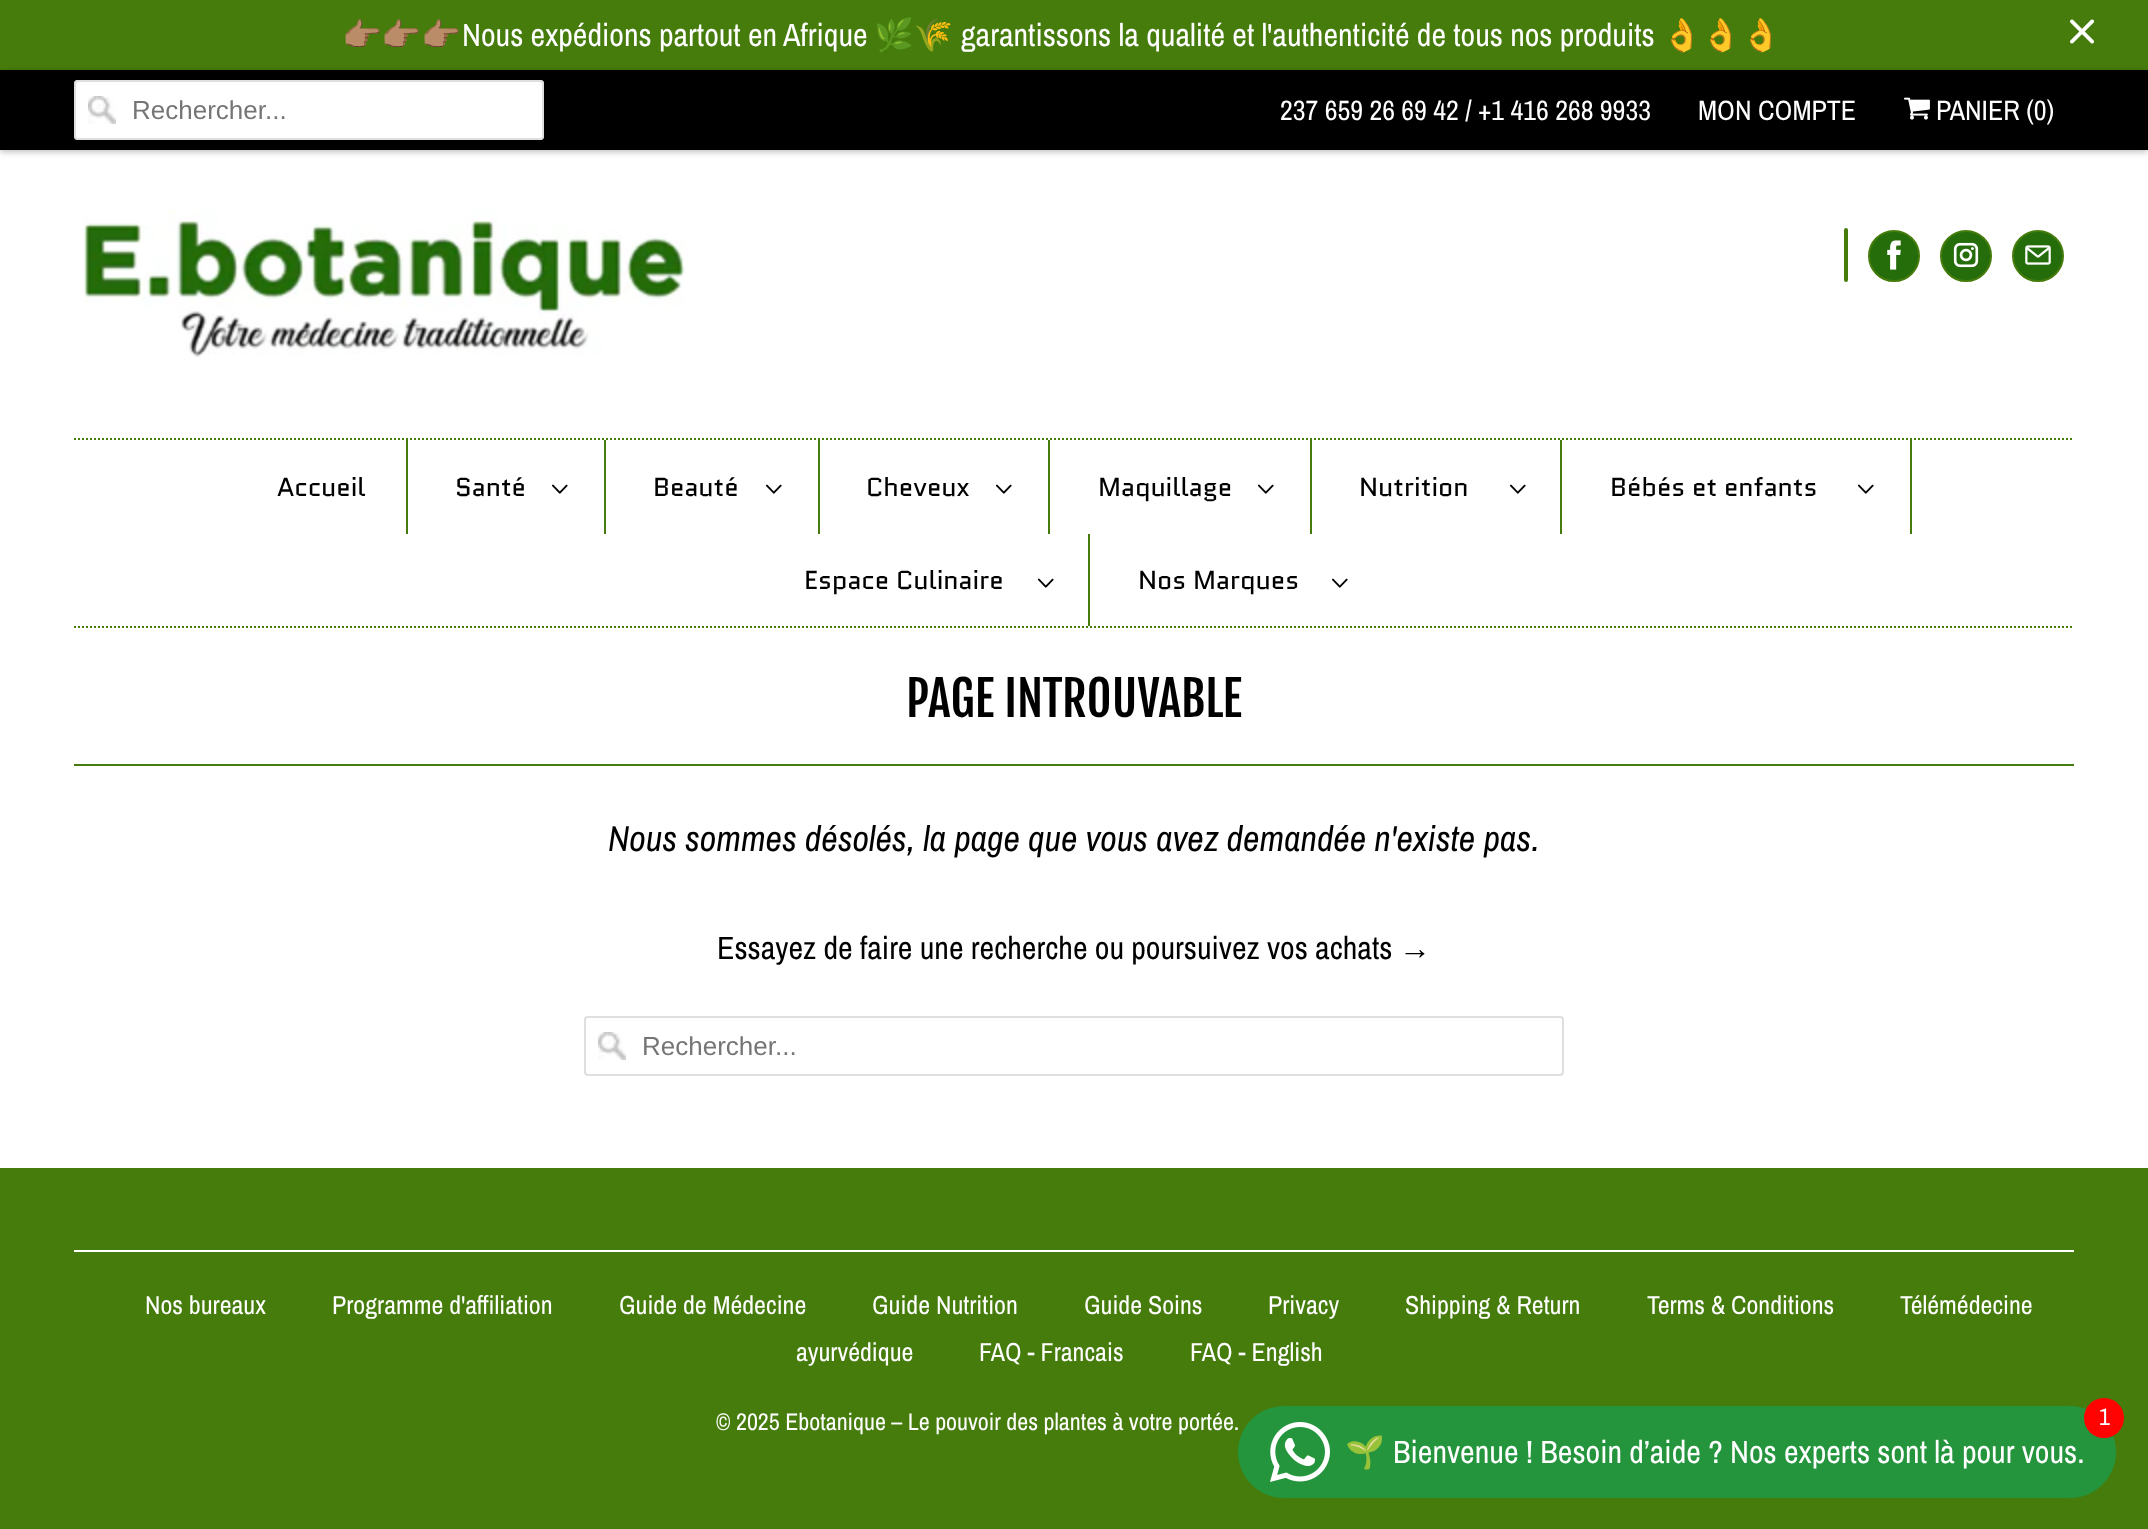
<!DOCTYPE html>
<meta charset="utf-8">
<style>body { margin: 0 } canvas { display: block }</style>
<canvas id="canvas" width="2148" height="1529"></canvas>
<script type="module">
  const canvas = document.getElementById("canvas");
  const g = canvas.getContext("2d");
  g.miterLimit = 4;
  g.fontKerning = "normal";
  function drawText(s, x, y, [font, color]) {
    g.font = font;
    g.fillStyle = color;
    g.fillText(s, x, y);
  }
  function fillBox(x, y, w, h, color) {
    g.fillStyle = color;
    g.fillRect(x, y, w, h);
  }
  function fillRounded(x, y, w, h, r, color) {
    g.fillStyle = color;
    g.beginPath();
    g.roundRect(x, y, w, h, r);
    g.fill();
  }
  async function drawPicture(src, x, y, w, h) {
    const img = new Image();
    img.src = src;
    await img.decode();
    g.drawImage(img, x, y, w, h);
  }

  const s1 = ["32px Noto Color Emoji", "#FFFFFF"];
  const s2 = ["32px Archivo Narrow", "#FFFFFF"];
  const s3 = ["26px Liberation Sans", "#757575"];
  const s4 = ["28px Archivo Narrow", "#FFFFFF"];
  const s5 = ["26px Quantico", "#000000"];
  const s6 = ["48px Fjalla One", "#000000"];
  const s7 = ["italic 36px Archivo Narrow", "#000000"];
  const s8 = ["32px Archivo Narrow", "#000000"];
  const s9 = ["32px Liberation Sans", "#000000"];
  const s10 = ["26px Archivo Narrow", "#FFFFFF"];
  const s11 = ["24px Archivo Narrow", "#FFFFFF"];

  fillBox(0, 0, 2148, 1529, "#FFFFFF");
  fillBox(0, 0, 2148, 70, "#457C0C");
  drawText("👉🏽👉🏽👉🏽", 342, 46, s1);
  drawText("Nous expédions partout en Afrique", 462, 46, s2);
  drawText("🌿🌾", 874, 46, s1);
  drawText("garantissons la qualité et l'authenticité de tous nos produits", 961, 46, s2);
  drawText("👌👌👌", 1662, 46, s1);
  await drawPicture("pic1.png", 2070, 19, 25, 25);
  g.fillStyle = "rgba(0, 0, 0, 0.25)";
  g.filter = "blur(3px)";
  g.beginPath();
  g.rect(0, 72, 2148, 80);
  g.fill();
  g.filter = "none";
  fillBox(0, 70, 2148, 80, "#000000");
  fillRounded(74, 80, 470, 60, 4, "#FFFFFF");
  await drawPicture("pic2.png", 88, 96, 28, 28);
  g.beginPath();
  g.roundRect(75, 81, 468, 58, 3);
  g.strokeStyle = "#DFDFDF";
  g.lineWidth = 2;
  g.stroke();
  drawText("Rechercher...", 132, 119, s3);
  drawText("237 659 26 69 42 / +1 416 268 9933", 1280, 120, s4);
  drawText("MON COMPTE", 1698, 120, s4);
  await drawPicture("pic3.png", 1904, 97, 26, 23);
  drawText("PANIER (0)", 1936, 120, s4);
  await drawPicture("pic4.png", 83, 210, 602, 147);
  fillRounded(1844, 228, 4, 54, 2, "#457C0C");
  g.fillStyle = "#256C0B";
  g.beginPath();
  g.arc(1894, 256, 25, 0, Math.PI * 2);
  g.fill();
  g.strokeStyle = "#457C0C";
  g.stroke();
  await drawPicture("pic5.png", 1887, 240, 14, 30);
  g.beginPath();
  g.arc(1966, 256, 25, 0, Math.PI * 2);
  g.fill();
  g.stroke();
  await drawPicture("pic6.png", 1953, 242, 26, 26);
  g.beginPath();
  g.arc(2038, 256, 25, 0, Math.PI * 2);
  g.fill();
  g.stroke();
  await drawPicture("pic7.png", 2025, 245, 26, 20);
  g.beginPath();
  g.moveTo(74, 439);
  g.lineTo(2074, 439);
  g.setLineDash([2, 2]);
  g.stroke();
  g.beginPath();
  g.moveTo(74, 627);
  g.lineTo(2074, 627);
  g.stroke();
  fillBox(406, 440, 2, 94, "#457C0C");
  drawText("Accueil", 277, 496, s5);
  fillBox(604, 440, 2, 94, "#457C0C");
  drawText("Santé", 455, 496, s5);
  await drawPicture("pic8.png", 552, 484, 16, 10);
  fillBox(818, 440, 2, 94, "#457C0C");
  drawText("Beauté", 653, 496, s5);
  await drawPicture("pic8.png", 766, 484, 16, 10);
  fillBox(1048, 440, 2, 94, "#457C0C");
  drawText("Cheveux", 866, 496, s5);
  await drawPicture("pic8.png", 996, 484, 16, 10);
  fillBox(1310, 440, 2, 94, "#457C0C");
  drawText("Maquillage", 1098, 496, s5);
  await drawPicture("pic8.png", 1258, 484, 16, 10);
  fillBox(1560, 440, 2, 94, "#457C0C");
  drawText("Nutrition", 1359, 496, s5);
  await drawPicture("pic8.png", 1510, 484, 16, 10);
  fillBox(1910, 440, 2, 94, "#457C0C");
  drawText("Bébés et enfants", 1610, 496, s5);
  await drawPicture("pic8.png", 1858, 484, 16, 10);
  fillBox(1088, 534, 2, 92, "#457C0C");
  drawText("Espace Culinaire", 804, 589, s5);
  await drawPicture("pic8.png", 1038, 578, 16, 10);
  drawText("Nos Marques", 1138, 589, s5);
  await drawPicture("pic8.png", 1332, 578, 16, 10);
  fillBox(74, 764, 2000, 2, "#457C0C");
  drawText("PAGE INTROUVABLE", 906, 717, s6);
  drawText("Nous sommes désolés, la page que vous avez demandée n'existe pas.", 608, 851, s7);
  drawText("Essayez de faire une recherche ou poursuivez vos achats", 717, 959, s8);
  drawText("→", 1399, 959, s9);
  await drawPicture("pic2.png", 598, 1032, 28, 28);
  g.beginPath();
  g.roundRect(585, 1017, 978, 58, 3);
  g.strokeStyle = "#DFDFDF";
  g.setLineDash([]);
  g.stroke();
  drawText("Rechercher...", 642, 1055, s3);
  fillBox(0, 1168, 2148, 361, "#457C0C");
  fillBox(74, 1250, 2000, 2, "#FFFFFF");
  drawText("Nos bureaux", 145, 1314, s10);
  drawText("Programme d'affiliation", 332, 1314, s10);
  drawText("Guide de Médecine", 619, 1314, s10);
  drawText("Guide Nutrition", 872, 1314, s10);
  drawText("Guide Soins", 1084, 1314, s10);
  drawText("Privacy", 1268, 1314, s10);
  drawText("Shipping & Return", 1405, 1314, s10);
  drawText("Terms & Conditions", 1647, 1314, s10);
  drawText("Télémédecine", 1900, 1314, s10);
  drawText("ayurvédique", 796, 1361, s10);
  drawText("FAQ - Francais", 979, 1361, s10);
  drawText("FAQ - English", 1190, 1361, s10);
  drawText("© 2025 Ebotanique – Le pouvoir des plantes à votre portée.", 716, 1430, s11);
  fillRounded(1238, 1406, 878, 92, 46, "#24953C");
  g.fillStyle = "#FF0303";
  g.beginPath();
  g.arc(2104, 1418, 20, 0, Math.PI * 2);
  g.fill();
  drawText("1", 2099, 1425, s11);
  await drawPicture("pic9.png", 1270, 1422, 60, 60);
  drawText("🌱", 1345, 1463, s1);
  drawText("Bienvenue ! Besoin d’aide ? Nos experts sont là pour vous.", 1393, 1463, s2);
</script>
